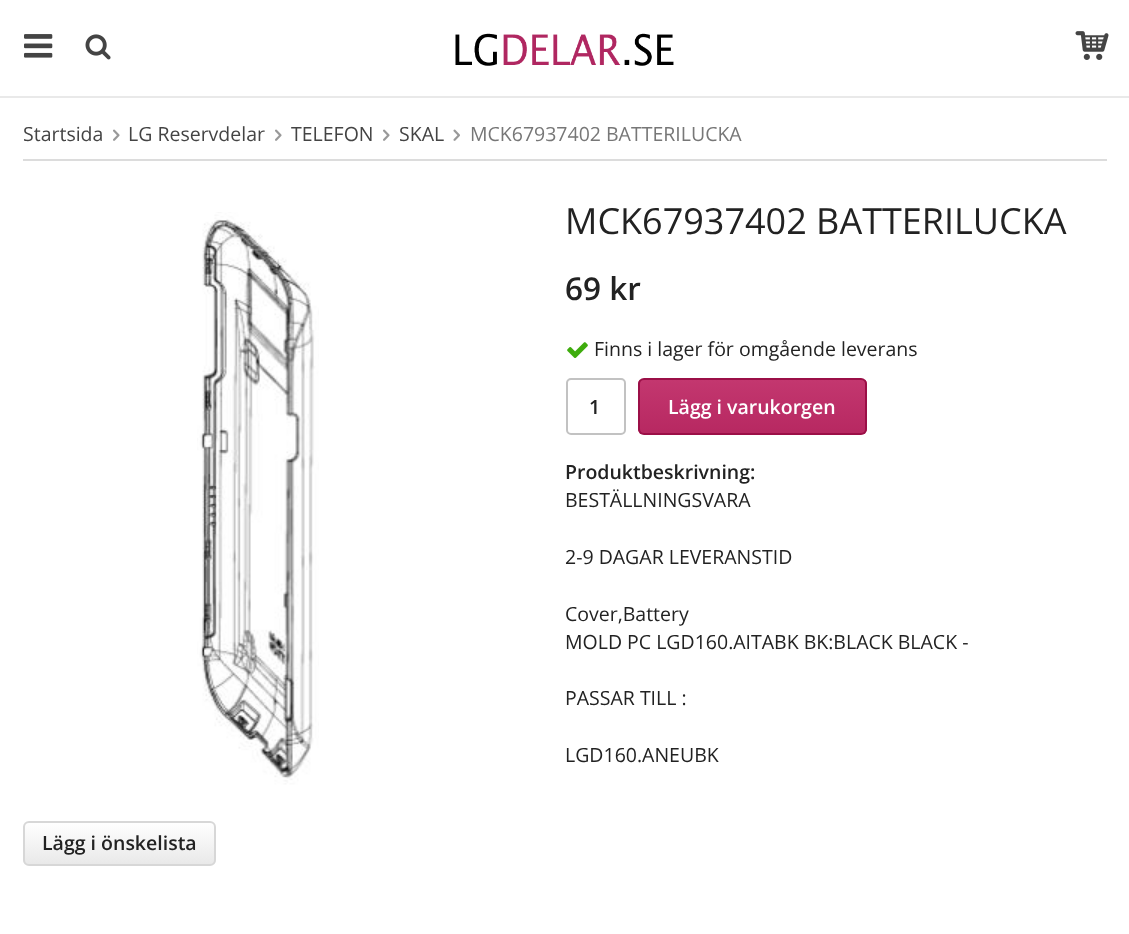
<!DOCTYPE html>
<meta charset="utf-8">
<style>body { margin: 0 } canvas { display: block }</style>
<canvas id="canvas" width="1129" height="934"></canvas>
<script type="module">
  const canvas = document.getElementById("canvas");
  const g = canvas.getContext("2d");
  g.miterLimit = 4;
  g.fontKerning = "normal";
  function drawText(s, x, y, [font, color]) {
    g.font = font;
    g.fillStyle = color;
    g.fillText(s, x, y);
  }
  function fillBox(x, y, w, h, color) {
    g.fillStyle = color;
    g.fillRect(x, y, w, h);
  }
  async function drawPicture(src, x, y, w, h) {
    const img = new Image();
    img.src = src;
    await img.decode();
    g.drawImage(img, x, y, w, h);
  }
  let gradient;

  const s1 = ["19.5px Open Sans", "#444444"];
  const s2 = ["19.5px Open Sans", "#777777"];
  const s3 = ["36px Open Sans", "#222222"];
  const s4 = ["600 31.5px Open Sans", "#222222"];
  const s5 = ["19.5px Open Sans", "#222222"];
  const s6 = ["600 19.5px Open Sans", "#222222"];
  const s7 = ["600 19.5px Open Sans", "#FFFFFF"];

  fillBox(0, 0, 1129, 934, "#FFFFFF");
  fillBox(0, 96, 1129, 2, "#E9E9E9");
  await drawPicture("pic1.png", 24, 34, 29, 24);
  await drawPicture("pic2.png", 85, 34, 26, 26);
  await drawPicture("pic3.png", 455, 33, 219, 33);
  await drawPicture("pic4.png", 1075, 31, 34, 29);
  fillBox(23, 159, 1084, 2, "#DCDCDC");
  drawText("Startsida", 23, 141, s1);
  await drawPicture("pic5.png", 113, 129, 7, 12);
  drawText("LG Reservdelar", 128, 141, s1);
  await drawPicture("pic5.png", 275, 129, 7, 12);
  drawText("TELEFON", 291, 141, s1);
  await drawPicture("pic5.png", 383, 129, 7, 12);
  drawText("SKAL", 399, 141, s1);
  await drawPicture("pic6.png", 453, 129, 7, 12);
  drawText("MCK67937402 BATTERILUCKA", 470, 141, s2);
  await drawPicture("pic7.png", 197, 212, 122, 573);
  drawText("MCK67937402 BATTERILUCKA", 565, 234, s3);
  drawText("69 kr", 565, 300, s4);
  await drawPicture("pic8.png", 567, 342, 21, 16);
  drawText("Finns i lager för omgående leverans", 594, 356, s5);
  g.beginPath();
  g.roundRect(567, 379, 58, 55, 4);
  g.strokeStyle = "#C2C2C2";
  g.lineWidth = 2;
  g.stroke();
  drawText("1", 589, 414, s6);
  g.save();
  g.beginPath();
  g.roundRect(638, 378, 229, 57, 6);
  g.clip();
  gradient = g.createLinearGradient(752, 380, 752, 434);
  gradient.addColorStop(0, "#C3376F");
  gradient.addColorStop(1, "#B72861");
  g.fillStyle = gradient;
  g.fillRect(638, 380, 229, 54);
  g.restore();
  g.beginPath();
  g.roundRect(639, 379, 227, 55, 5);
  g.strokeStyle = "#9B0F47";
  g.stroke();
  drawText("Lägg i varukorgen", 668, 414, s7);
  drawText("Produktbeskrivning:", 565, 479, s6);
  drawText("BESTÄLLNINGSVARA", 565, 507, s5);
  drawText("2-9 DAGAR LEVERANSTID", 565, 564, s5);
  drawText("Cover,Battery", 565, 621, s5);
  drawText("MOLD PC LGD160.AITABK BK:BLACK BLACK -", 565, 649, s5);
  drawText("PASSAR TILL :", 565, 705, s5);
  drawText("LGD160.ANEUBK", 565, 762, s5);
  g.save();
  g.beginPath();
  g.roundRect(23, 821, 193, 45, 6);
  g.clip();
  gradient = g.createLinearGradient(119, 822, 119, 864);
  gradient.addColorStop(0, "#FFFFFF");
  gradient.addColorStop(1, "#E9E9E9");
  g.fillStyle = gradient;
  g.fillRect(23, 822, 193, 42);
  g.restore();
  g.beginPath();
  g.roundRect(24, 822, 191, 43, 5);
  g.strokeStyle = "#D7D7D7";
  g.stroke();
  drawText("Lägg i önskelista", 42, 850, s6);
</script>
